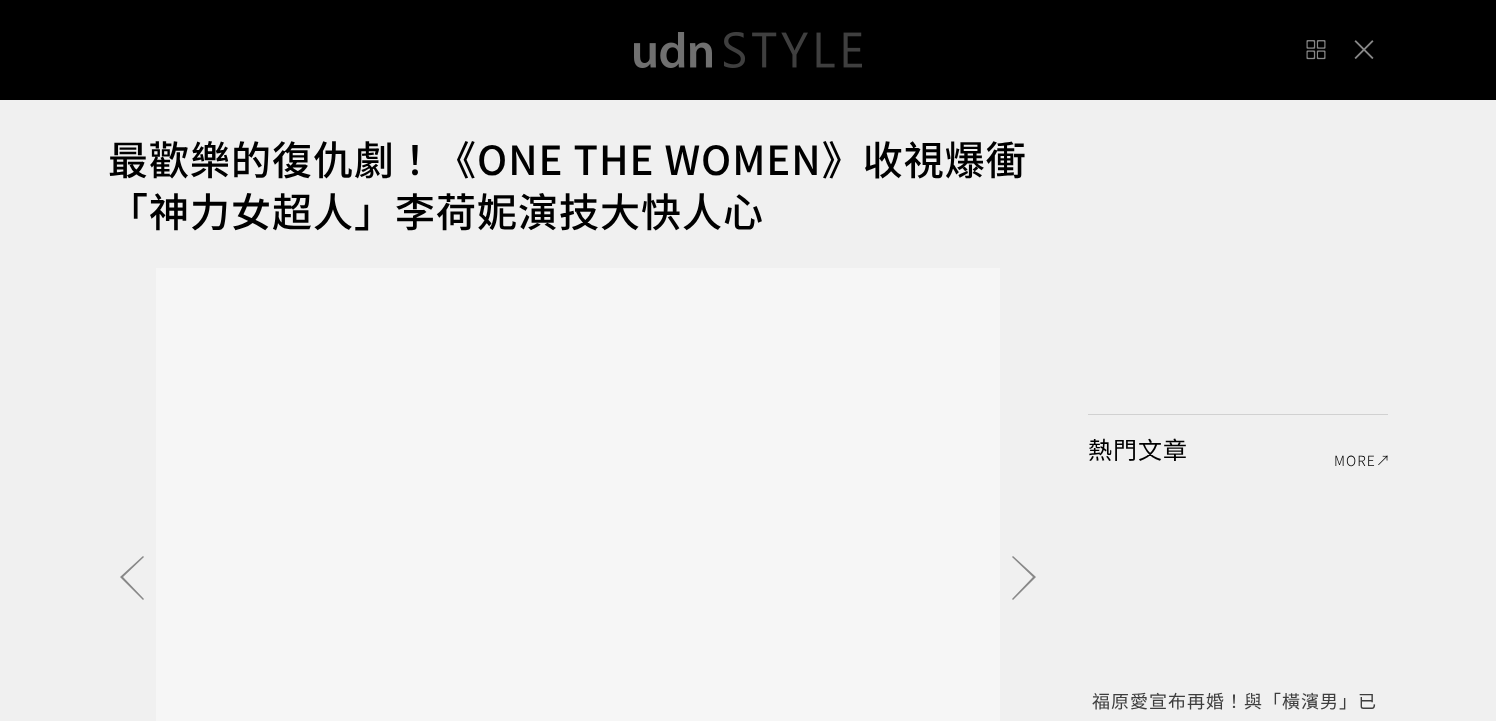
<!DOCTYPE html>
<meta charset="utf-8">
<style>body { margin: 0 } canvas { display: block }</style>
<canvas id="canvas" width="1496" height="721"></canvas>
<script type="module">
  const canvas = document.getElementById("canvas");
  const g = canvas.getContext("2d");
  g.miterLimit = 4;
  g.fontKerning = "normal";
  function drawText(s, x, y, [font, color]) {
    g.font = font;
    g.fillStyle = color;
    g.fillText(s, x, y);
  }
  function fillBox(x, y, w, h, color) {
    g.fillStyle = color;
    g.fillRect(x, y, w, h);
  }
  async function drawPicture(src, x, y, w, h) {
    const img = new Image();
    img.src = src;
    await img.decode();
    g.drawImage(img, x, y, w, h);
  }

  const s1 = ["500 40px Noto Sans TC", "#000000"];
  const s2 = ["24px Noto Sans TC", "#000000"];
  const s3 = ["300 14px Noto Sans TC", "#000000"];
  const s4 = ["18px Noto Sans TC", "#3D3D3D"];

  fillBox(0, 0, 1496, 721, "#F0F0F0");
  fillBox(0, 0, 1496, 100, "#000000");
  await drawPicture("pic1.png", 634, 32, 78, 36);
  await drawPicture("pic2.png", 724, 32, 138, 36);
  await drawPicture("pic3.png", 1306, 40, 20, 20);
  await drawPicture("pic4.png", 1354, 40, 20, 19);
  g.letterSpacing = "1px";
  drawText("最歡樂的復仇劇！《ONE THE WOMEN》收視爆衝", 108, 175, s1);
  drawText("「神力女超人」李荷妮演技大快人心", 108, 227, s1);
  fillBox(156, 268, 844, 453, "#F6F6F6");
  g.fillStyle = "#888888";
  g.beginPath();
  g.moveTo(143, 600);
  g.lineTo(120, 577);
  g.lineTo(143, 556);
  g.lineTo(144, 557);
  g.lineTo(123, 577);
  g.lineTo(144, 599);
  g.closePath();
  g.fill();
  g.beginPath();
  g.moveTo(1013, 600);
  g.lineTo(1012, 599);
  g.lineTo(1033, 577);
  g.lineTo(1012, 557);
  g.lineTo(1013, 556);
  g.lineTo(1036, 577);
  g.closePath();
  g.fill();
  fillBox(1088, 414, 300, 1, "#D1D1D1");
  drawText("熱門文章", 1088, 459, s2);
  drawText("MORE", 1334, 466, s3);
  await drawPicture("pic5.png", 1378, 455, 10, 11);
  drawText("福原愛宣布再婚！與「橫濱男」已", 1092, 708, s4);
</script>
